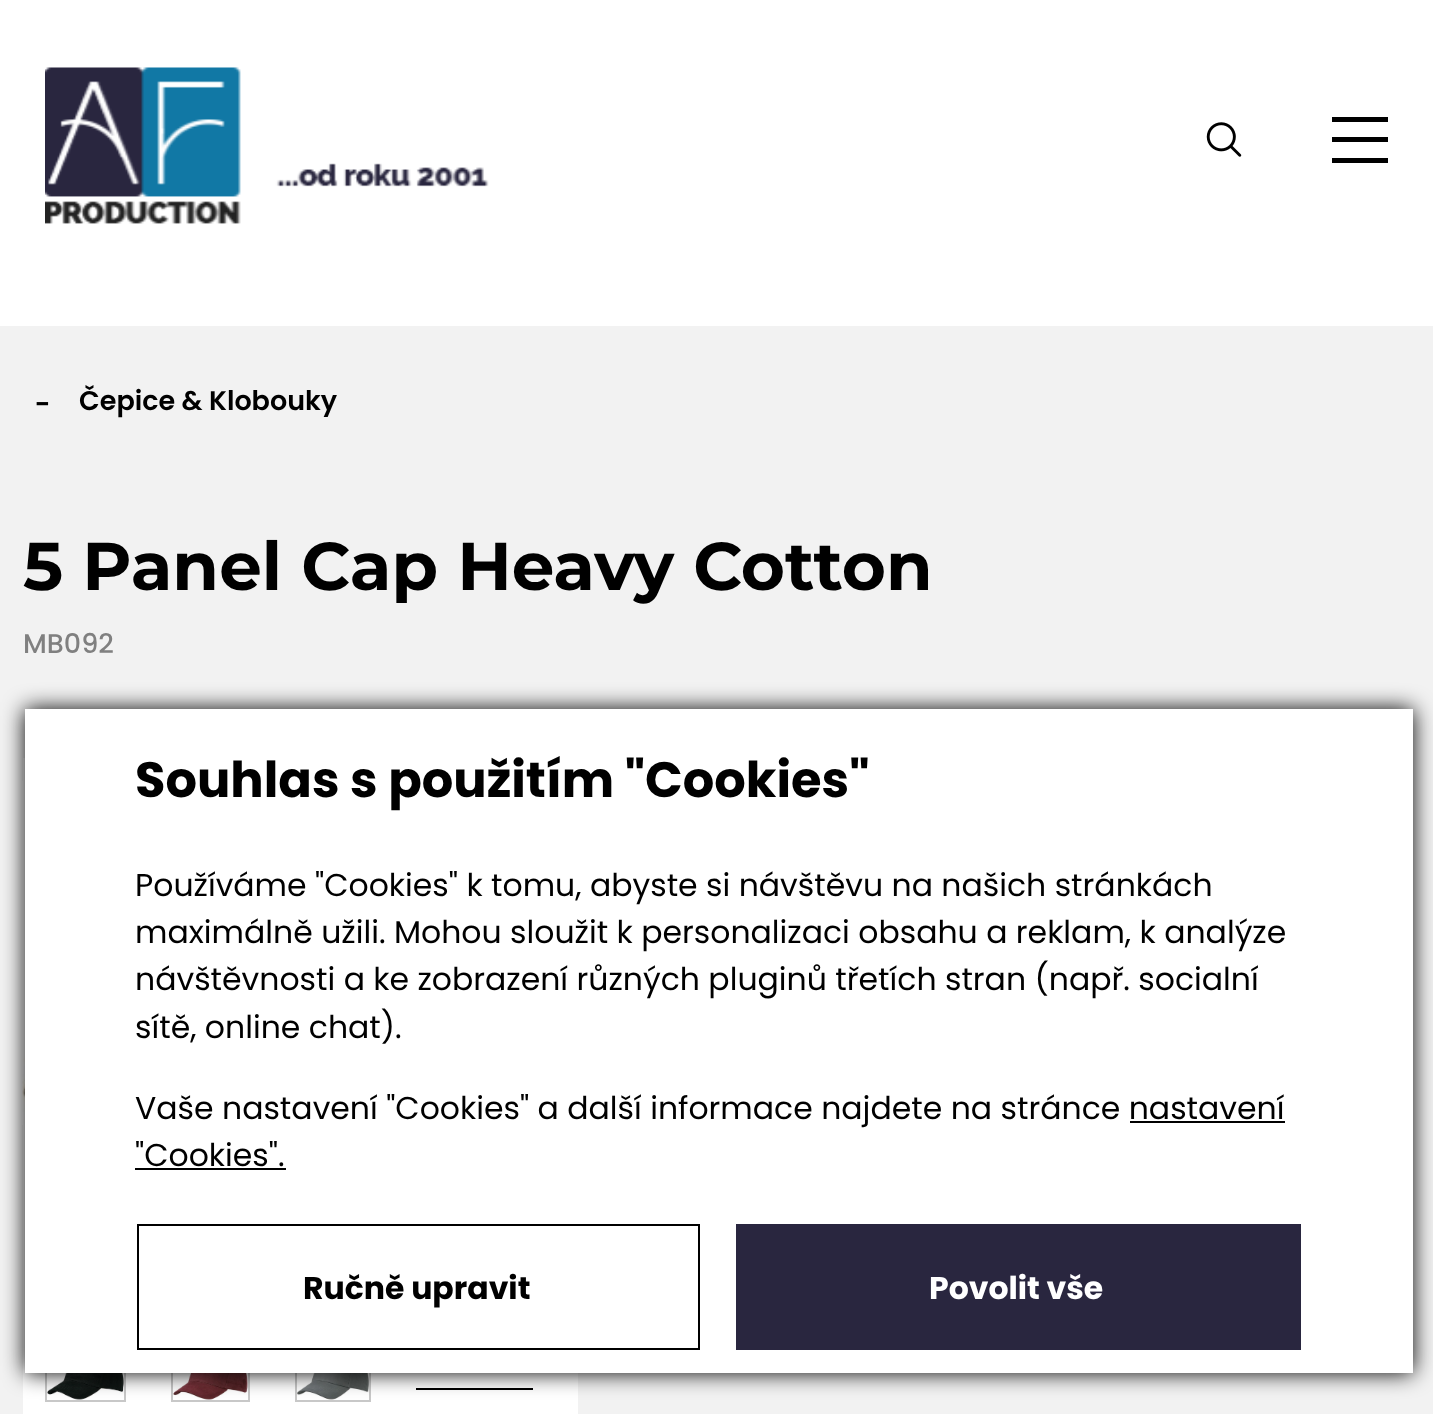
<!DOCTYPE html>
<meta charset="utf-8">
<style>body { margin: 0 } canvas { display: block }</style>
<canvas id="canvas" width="1433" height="1414"></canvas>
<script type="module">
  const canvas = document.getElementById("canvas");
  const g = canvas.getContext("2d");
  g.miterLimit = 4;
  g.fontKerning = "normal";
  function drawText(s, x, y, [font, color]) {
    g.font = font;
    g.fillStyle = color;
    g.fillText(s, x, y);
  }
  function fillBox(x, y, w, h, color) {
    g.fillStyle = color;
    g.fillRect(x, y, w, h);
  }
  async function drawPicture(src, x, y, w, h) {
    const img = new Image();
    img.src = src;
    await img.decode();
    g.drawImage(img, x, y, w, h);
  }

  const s1 = ["600 27px Poppins", "#000000"];
  const s2 = ["bold 67.5px Montserrat", "#000000"];
  const s3 = ["500 27px Poppins", "#808080"];
  const s4 = ["bold 49.5px Poppins", "#000000"];
  const s5 = ["31.5px Poppins", "#000000"];
  const s6 = ["bold 31.5px Poppins", "#000000"];
  const s7 = ["bold 31.5px Poppins", "#FFFFFF"];

  fillBox(0, 0, 1433, 1414, "#FFFFFF");
  await drawPicture("pic1.png", 45, 67, 444, 157);
  await drawPicture("pic2.png", 1206, 122, 36, 35);
  fillBox(1332, 137, 56, 5, "#000000");
  fillBox(1332, 117, 56, 5, "#000000");
  fillBox(1332, 158, 56, 5, "#000000");
  fillBox(0, 326, 1433, 1088, "#F2F2F2");
  g.font = "600 27px Poppins";
  g.fillStyle = "#000000";
  g.save();
  g.translate(50, 394);
  g.rotate(180 * Math.PI / 180);
  g.fillText("-", 0, 0);
  g.restore();
  drawText("Čepice & Klobouky", 79, 410, s1);
  drawText("5 Panel Cap Heavy Cotton", 23, 590, s2);
  drawText("MB092", 23, 653, s3);
  fillBox(23, 758, 555, 656, "#FFFFFF");
  await drawPicture("pic3.png", 22, 780, 3, 345);
  g.strokeStyle = "#C8C8C8";
  g.lineWidth = 2;
  g.strokeRect(46, 1351, 79, 50);
  await drawPicture("pic4.png", 47, 1373, 77, 27);
  g.strokeRect(172, 1351, 77, 50);
  await drawPicture("pic5.png", 173, 1373, 75, 27);
  g.strokeRect(296, 1351, 74, 50);
  await drawPicture("pic6.png", 297, 1373, 72, 27);
  fillBox(416, 1388, 117, 2, "#000000");
  g.filter = "blur(11px)";
  g.beginPath();
  g.rect(25, 709, 1388, 664);
  g.fill();
  g.filter = "none";
  fillBox(25, 709, 1388, 664, "#FFFFFF");
  drawText("Souhlas s použitím \"Cookies\"", 135, 797, s4);
  drawText("Používáme \"Cookies\" k tomu, abyste si návštěvu na našich stránkách", 135, 896, s5);
  drawText("maximálně užili. Mohou sloužit k personalizaci obsahu a reklam, k analýze", 135, 943, s5);
  drawText("návštěvnosti a ke zobrazení různých pluginů třetích stran (např. socialní", 135, 990, s5);
  drawText("sítě, online chat).", 135, 1038, s5);
  drawText("Vaše nastavení \"Cookies\" a další informace najdete na stránce nastavení", 135, 1119, s5);
  drawText("\"Cookies\".", 135, 1166, s5);
  fillBox(1130, 1121, 155, 2, "#000000");
  fillBox(135, 1168, 151, 2, "#000000");
  g.strokeStyle = "#000000";
  g.strokeRect(138, 1225, 561, 124);
  drawText("Ručně upravit", 303, 1299, s6);
  fillBox(736, 1224, 565, 126, "#29263F");
  drawText("Povolit vše", 929, 1299, s7);
</script>
